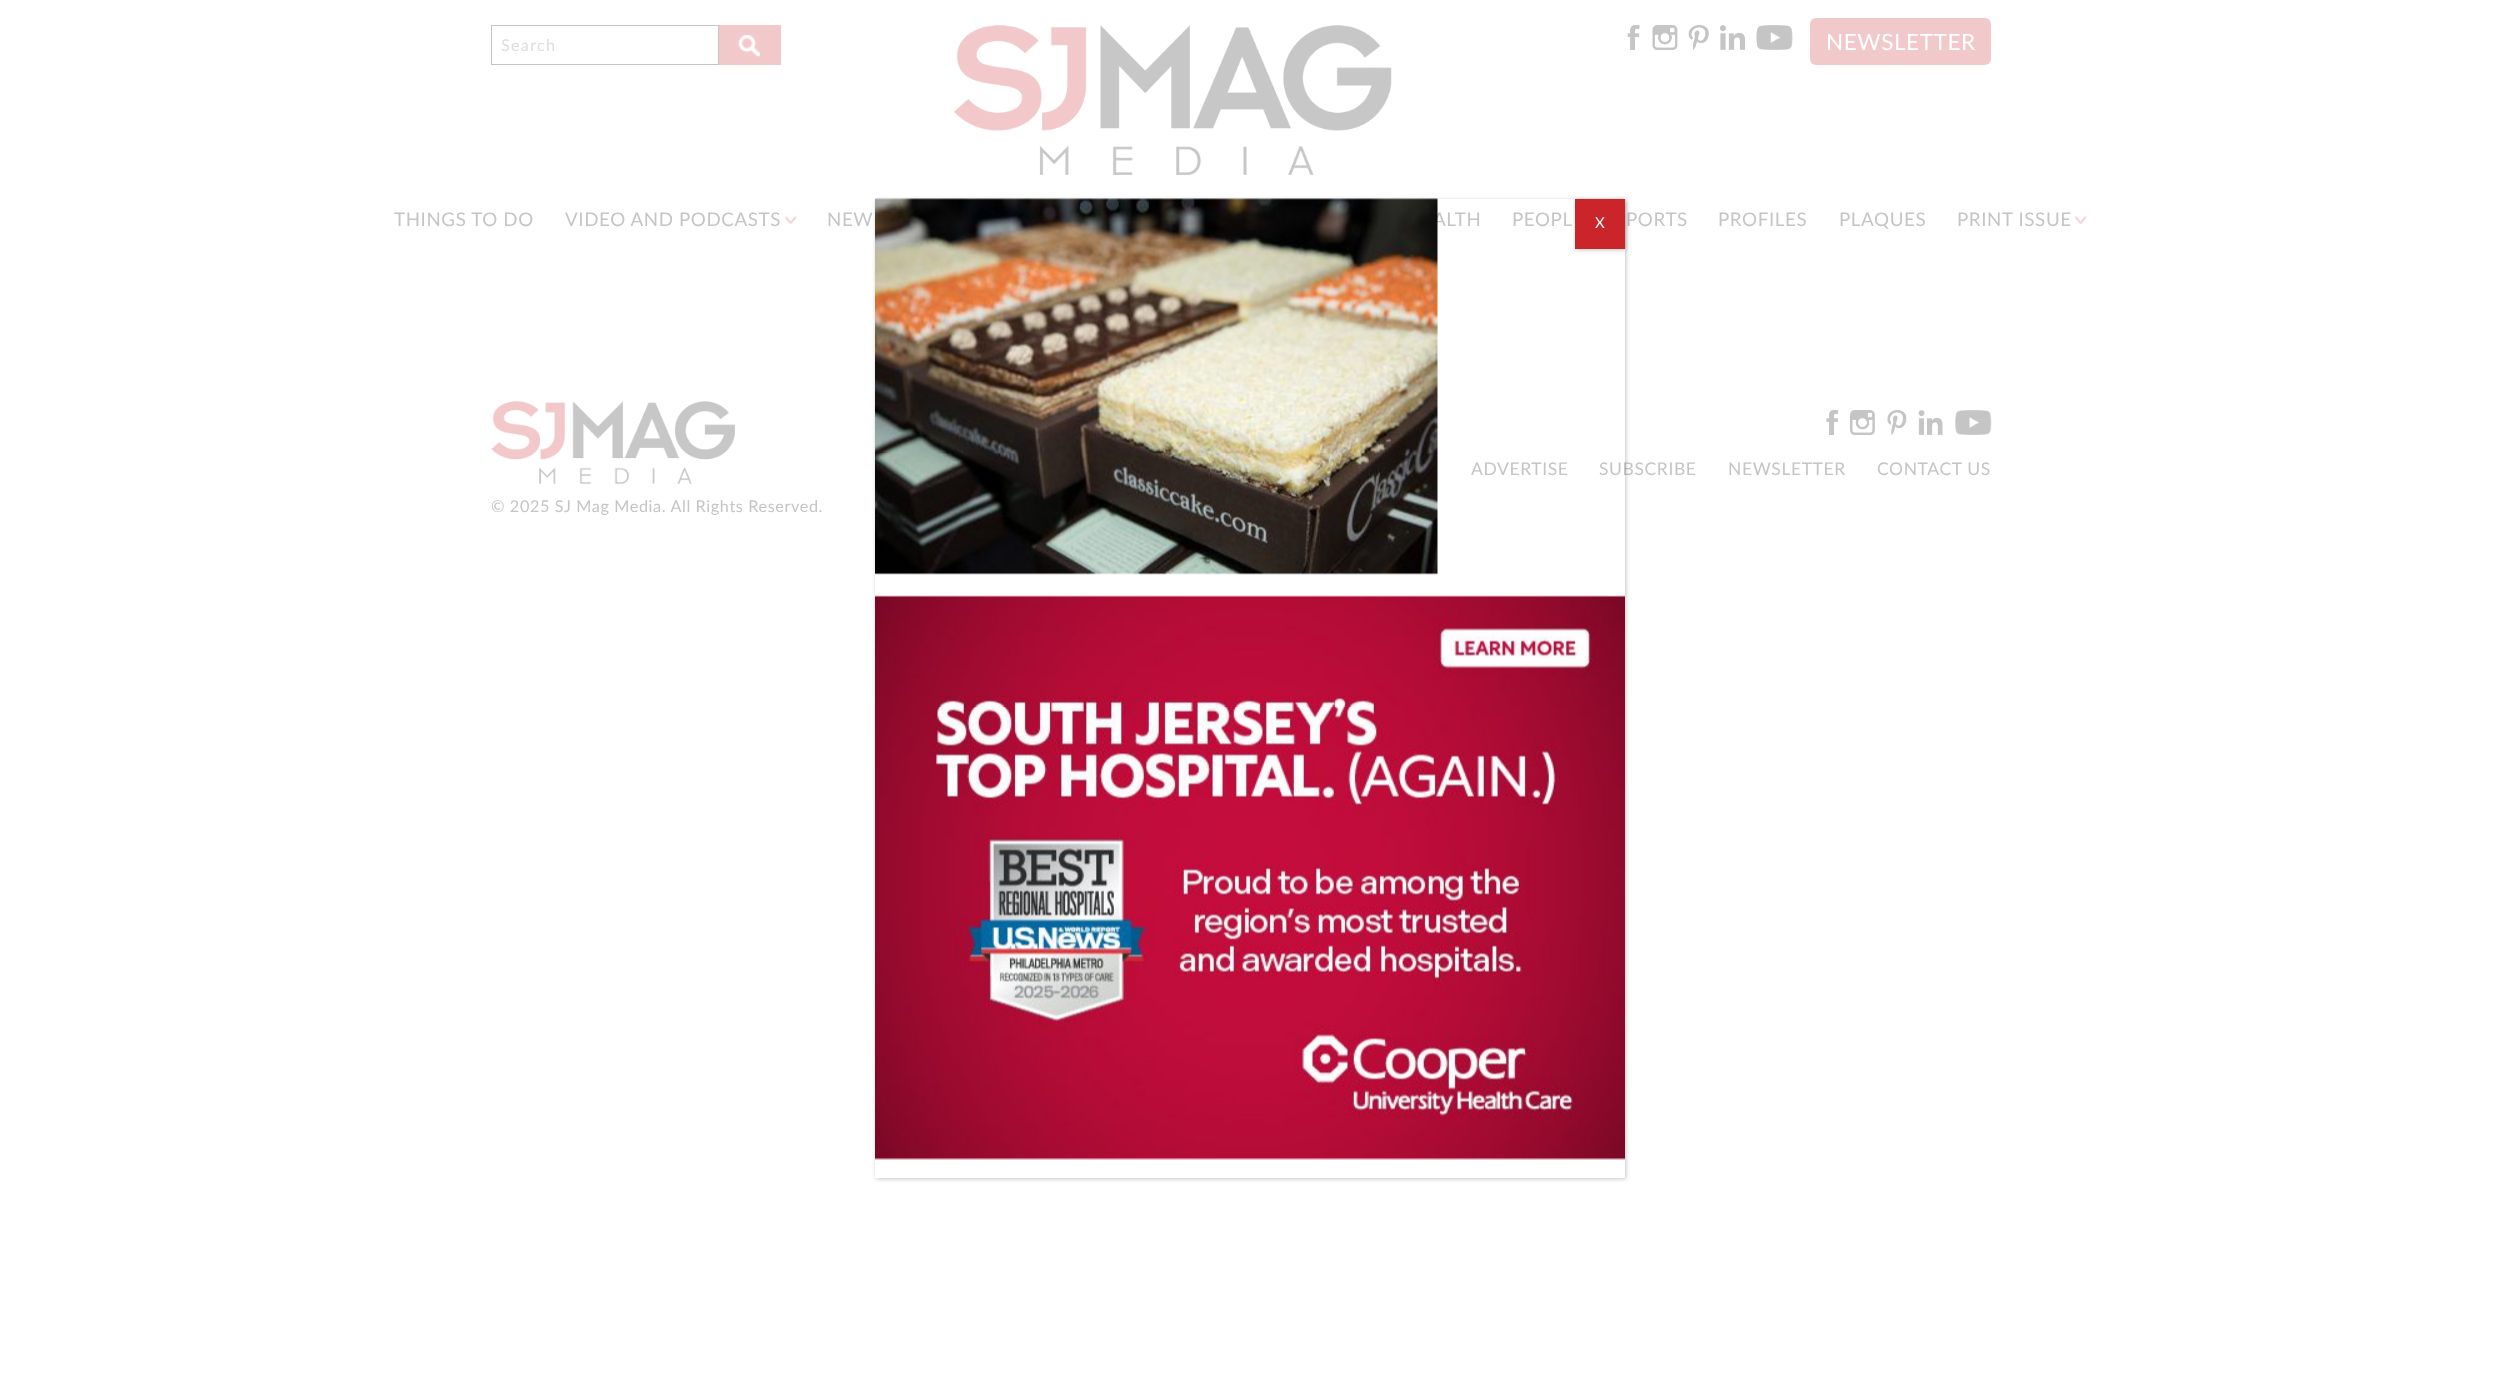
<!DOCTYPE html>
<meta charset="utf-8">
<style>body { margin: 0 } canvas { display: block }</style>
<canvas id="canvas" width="2500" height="1375"></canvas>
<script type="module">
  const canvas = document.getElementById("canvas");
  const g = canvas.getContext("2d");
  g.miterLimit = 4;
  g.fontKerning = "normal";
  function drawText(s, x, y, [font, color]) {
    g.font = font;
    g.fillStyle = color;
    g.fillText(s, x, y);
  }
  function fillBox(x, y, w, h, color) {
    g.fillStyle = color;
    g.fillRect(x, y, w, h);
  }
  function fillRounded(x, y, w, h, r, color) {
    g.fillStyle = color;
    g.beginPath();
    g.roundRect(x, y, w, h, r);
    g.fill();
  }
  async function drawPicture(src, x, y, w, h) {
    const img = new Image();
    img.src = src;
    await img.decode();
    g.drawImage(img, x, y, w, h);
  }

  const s1 = ["16.25px Lato", "#DDDDDD"];
  const s2 = ["22.5px Lato", "#FFFFFF"];
  const s3 = ["18.75px Lato", "#C5C5C5"];
  const s4 = ["17.5px Lato", "#C5C5C5"];
  const s5 = ["16.25px Lato", "#C5C5C5"];
  const s6 = ["15px Lato", "#FFFFFF"];

  fillBox(0, 0, 2500, 1375, "#FFFFFF");
  g.strokeStyle = "#C5C5C5";
  g.strokeRect(491.5, 25.5, 227, 39);
  g.letterSpacing = "1.25px";
  drawText("Search", 501, 51, s1);
  fillBox(719, 25, 62, 40, "#F2C9CA");
  await drawPicture("pic1.png", 738, 35, 22, 22);
  await drawPicture("pic2.png", 953, 25, 439, 150);
  await drawPicture("pic3.png", 1627, 25, 13, 25);
  await drawPicture("pic4.png", 1652, 25, 26, 25);
  await drawPicture("pic5.png", 1688, 25, 21, 25);
  await drawPicture("pic6.png", 1720, 25, 25, 25);
  await drawPicture("pic7.png", 1756, 25, 37, 25);
  fillRounded(1810, 18, 181, 47, 6, "#F2C9CA");
  g.letterSpacing = "0.6px";
  drawText("NEWSLETTER", 1826, 50, s2);
  drawText("THINGS TO DO", 394, 226, s3);
  drawText("VIDEO AND PODCASTS", 565, 226, s3);
  await drawPicture("pic8.png", 785, 216, 12, 8);
  drawText("NEW", 827, 226, s3);
  drawText("ALTH", 1433, 226, s3);
  drawText("PEOPL", 1512, 226, s3);
  drawText("PORTS", 1626, 226, s3);
  drawText("PROFILES", 1718, 226, s3);
  drawText("PLAQUES", 1839, 226, s3);
  drawText("PRINT ISSUE", 1957, 226, s3);
  await drawPicture("pic9.png", 2075, 216, 12, 8);
  await drawPicture("pic10.png", 491, 401, 244, 83);
  await drawPicture("pic11.png", 1826, 410, 13, 25);
  await drawPicture("pic12.png", 1850, 410, 25, 25);
  await drawPicture("pic13.png", 1887, 410, 20, 25);
  await drawPicture("pic14.png", 1918, 410, 25, 25);
  await drawPicture("pic15.png", 1955, 410, 37, 25);
  drawText("ADVERTISE", 1471, 475, s4);
  drawText("SUBSCRIBE", 1599, 475, s4);
  drawText("NEWSLETTER", 1728, 475, s4);
  drawText("CONTACT US", 1877, 475, s4);
  drawText("© 2025 SJ Mag Media. All Rights Reserved.", 491, 512, s5);
  g.save();
  g.beginPath();
  g.moveTo(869, 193);
  g.lineTo(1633, 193);
  g.lineTo(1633, 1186);
  g.lineTo(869, 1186);
  g.closePath();
  g.moveTo(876, 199);
  g.lineTo(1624, 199);
  g.bezierCurveTo(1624.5, 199, 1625, 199.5, 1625, 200);
  g.lineTo(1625, 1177);
  g.bezierCurveTo(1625, 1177.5, 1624.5, 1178, 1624, 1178);
  g.lineTo(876, 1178);
  g.bezierCurveTo(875.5, 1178, 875, 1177.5, 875, 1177);
  g.lineTo(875, 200);
  g.bezierCurveTo(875, 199.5, 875.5, 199, 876, 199);
  g.closePath();
  g.clip("evenodd");
  g.fillStyle = "rgba(2, 2, 2, 0.23)";
  g.filter = "blur(2px)";
  g.beginPath();
  g.roundRect(876, 200, 750, 979, 1);
  g.fill();
  g.filter = "none";
  g.restore();
  await drawPicture("pic16.png", 875, 198, 563, 377);
  await drawPicture("pic17.png", 875, 595, 750, 565);
  g.fillStyle = "rgba(2, 2, 2, 0.23)";
  g.filter = "blur(2px)";
  g.beginPath();
  g.rect(1576, 200, 50, 50);
  g.fill();
  g.filter = "none";
  fillBox(1575, 199, 50, 50, "#C9252B");
  g.letterSpacing = "0px";
  drawText("X", 1595, 228, s6);
</script>
